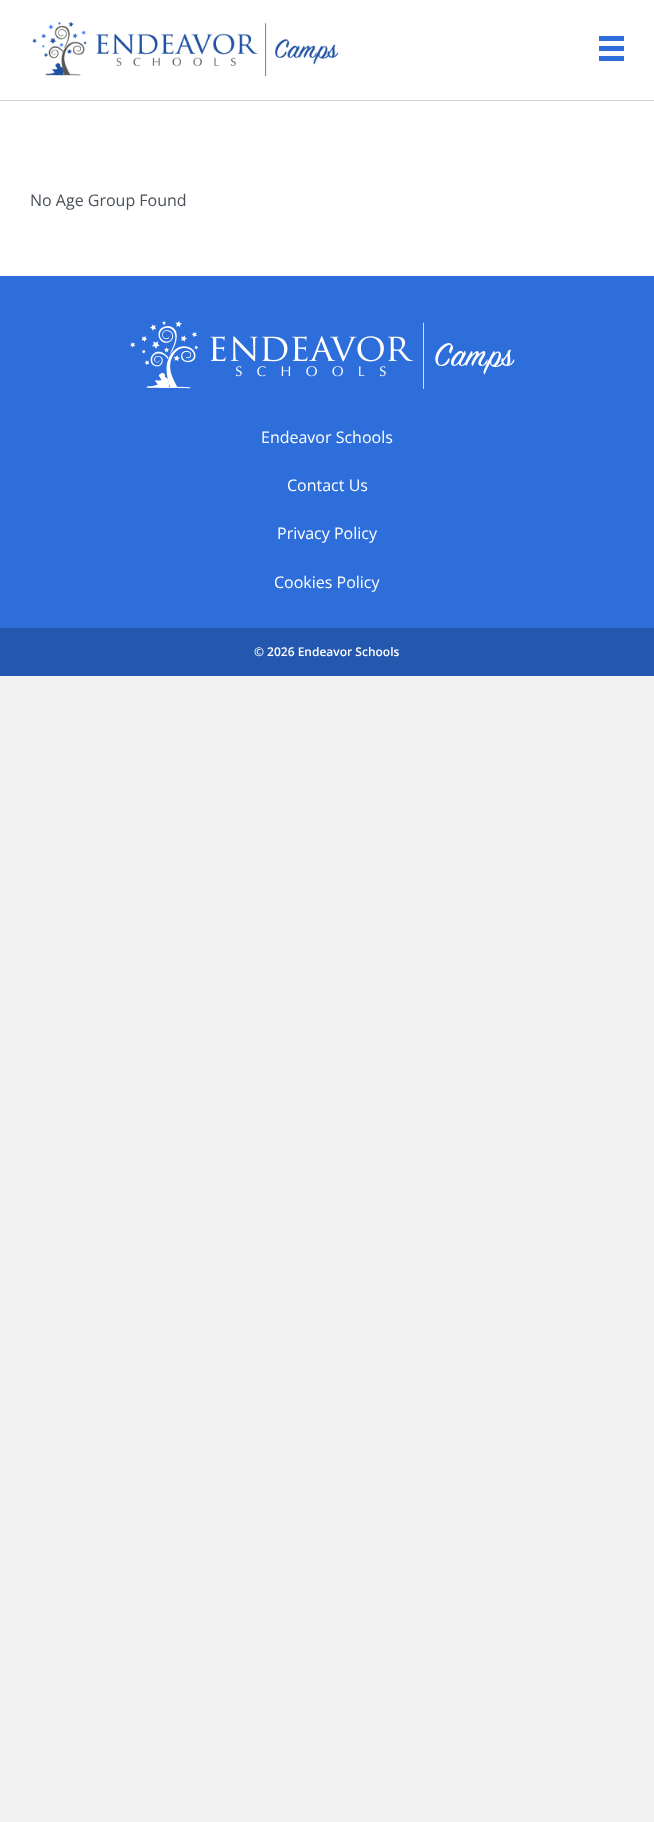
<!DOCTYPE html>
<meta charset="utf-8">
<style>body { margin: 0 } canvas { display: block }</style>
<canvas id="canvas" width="654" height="1822"></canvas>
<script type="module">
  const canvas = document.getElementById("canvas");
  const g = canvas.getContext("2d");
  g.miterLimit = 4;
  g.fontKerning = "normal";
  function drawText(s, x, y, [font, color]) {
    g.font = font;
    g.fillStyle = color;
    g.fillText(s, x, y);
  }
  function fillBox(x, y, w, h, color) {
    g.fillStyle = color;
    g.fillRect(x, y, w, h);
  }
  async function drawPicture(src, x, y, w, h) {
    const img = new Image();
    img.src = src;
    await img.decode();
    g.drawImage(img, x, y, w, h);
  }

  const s1 = ["16px Open Sans", "#495057"];
  const s2 = ["16px Open Sans", "#FFFFFF"];
  const s3 = ["600 12px Open Sans", "#FFFFFF"];

  fillBox(0, 0, 654, 1822, "#F2F2F2");
  fillBox(0, 0, 654, 100, "#FFFFFF");
  fillBox(0, 100, 654, 1, "#CED4DA");
  await drawPicture("pic1.png", 32, 21, 307, 55);
  fillBox(599, 36, 25, 5, "#2D6EDA");
  fillBox(599, 46, 25, 5, "#2D6EDA");
  fillBox(599, 56, 25, 5, "#2D6EDA");
  fillBox(0, 101, 654, 175, "#FFFFFF");
  drawText("No Age Group Found", 30, 206, s1);
  fillBox(0, 276, 654, 352, "#2D6EDA");
  await drawPicture("pic2.png", 130, 321, 385, 68);
  drawText("Endeavor Schools", 261, 443, s2);
  drawText("Contact Us", 287, 491, s2);
  drawText("Privacy Policy", 277, 539, s2);
  drawText("Cookies Policy", 274, 588, s2);
  fillBox(0, 628, 654, 48, "#2458AE");
  drawText("© 2026 Endeavor Schools", 254, 656, s3);
</script>
